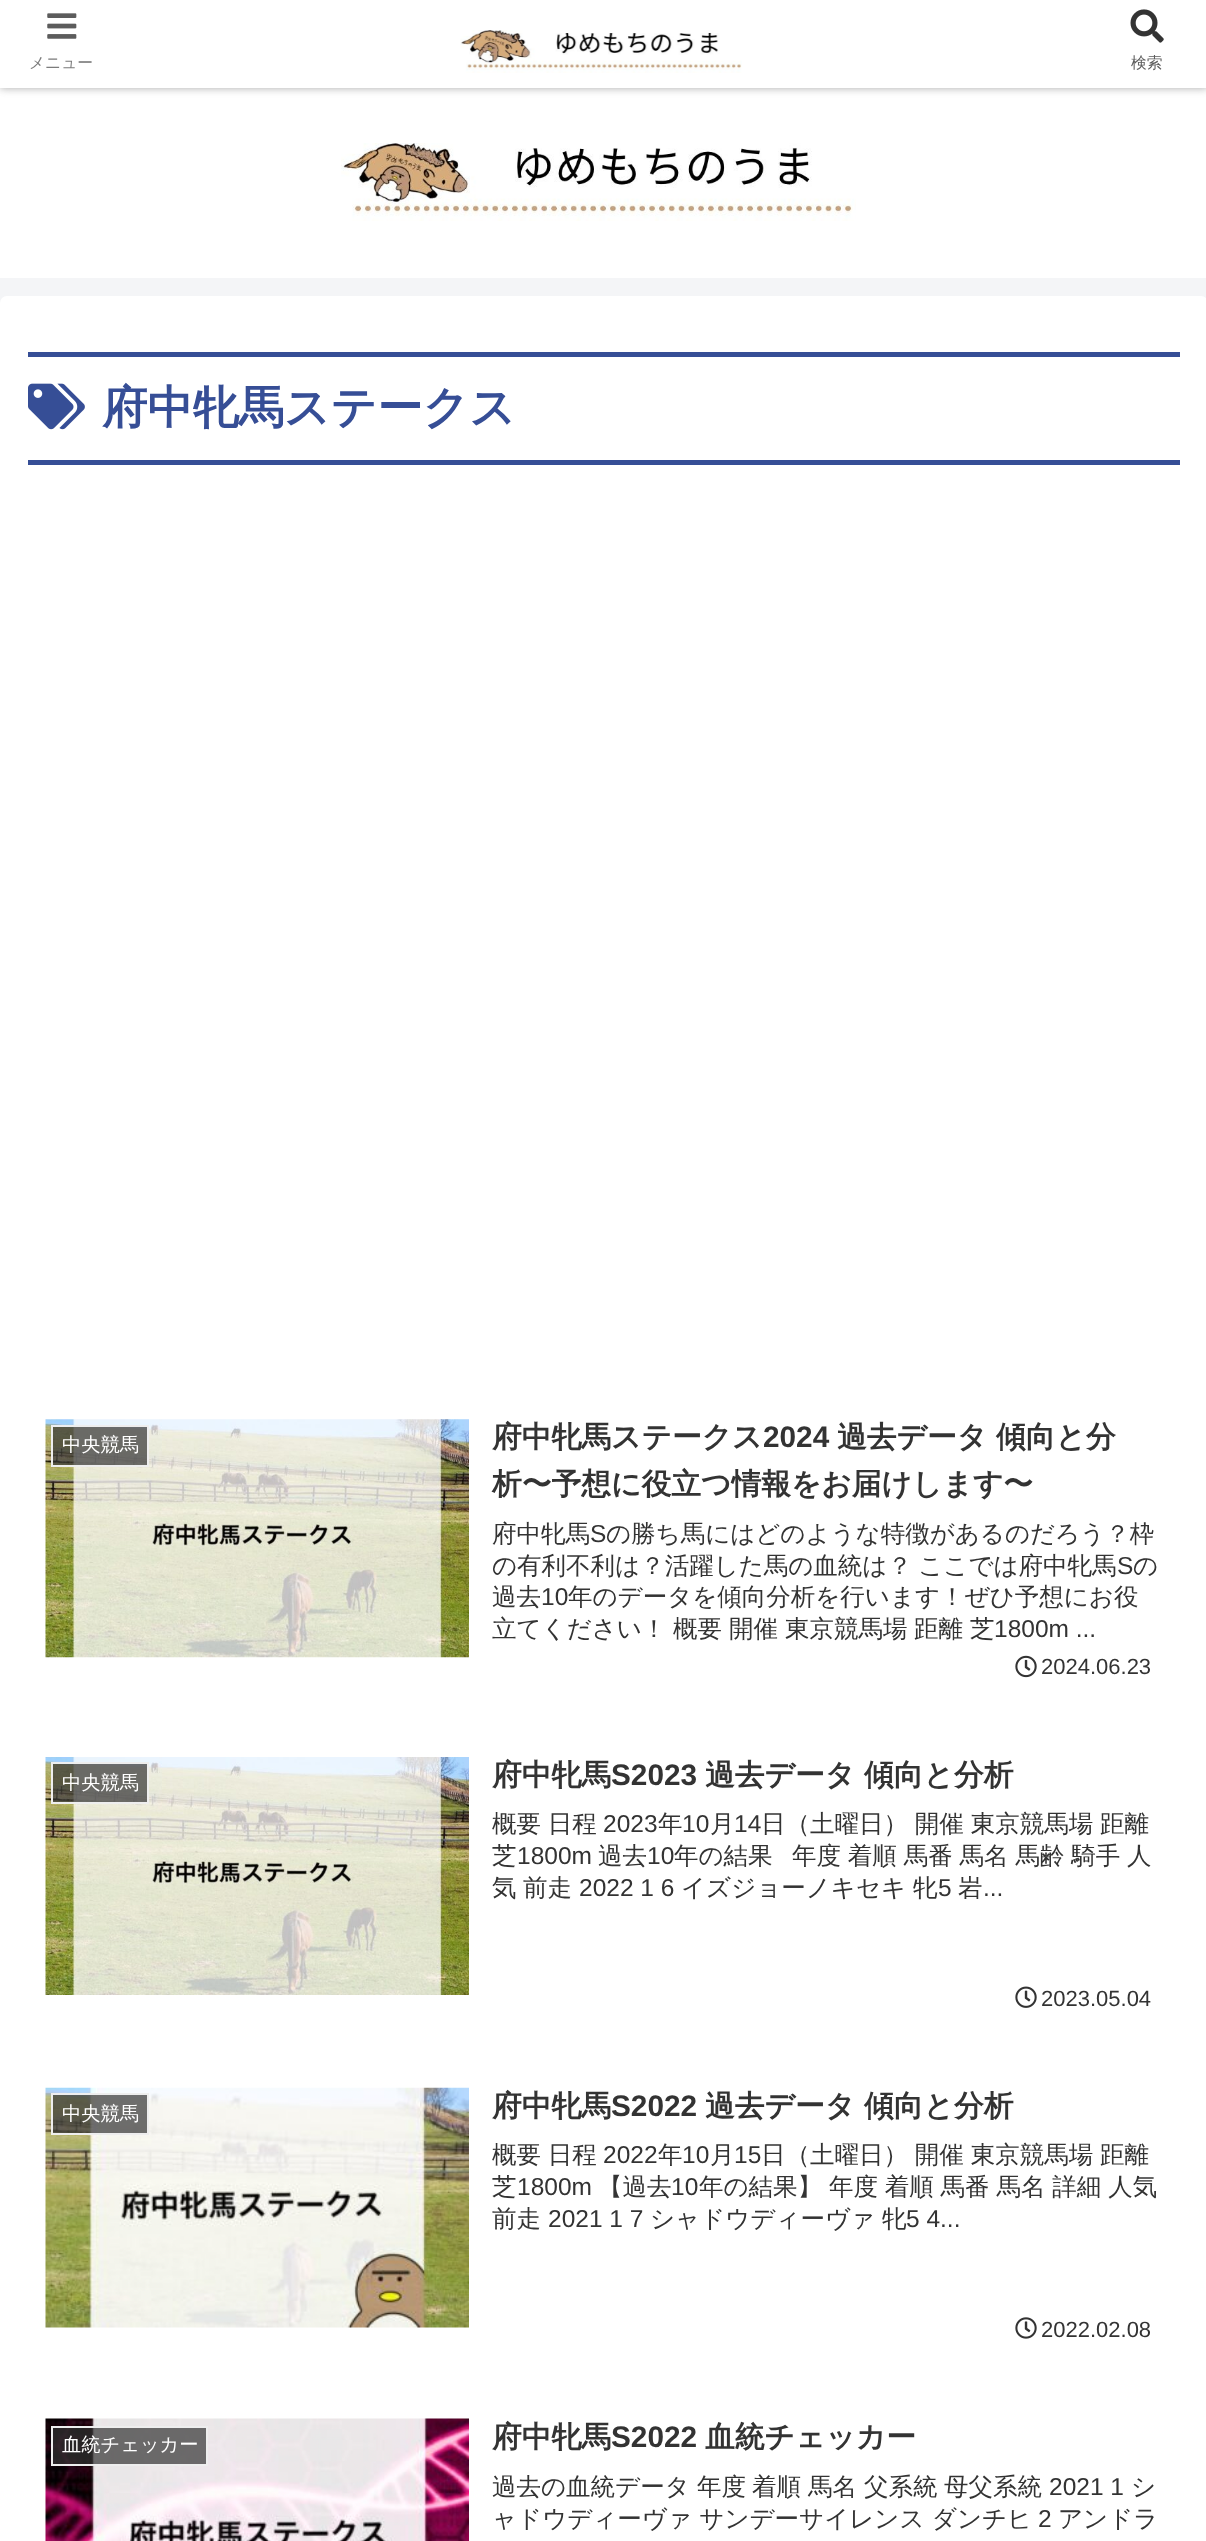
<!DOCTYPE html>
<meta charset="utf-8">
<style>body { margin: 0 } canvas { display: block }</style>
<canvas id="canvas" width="1206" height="2541"></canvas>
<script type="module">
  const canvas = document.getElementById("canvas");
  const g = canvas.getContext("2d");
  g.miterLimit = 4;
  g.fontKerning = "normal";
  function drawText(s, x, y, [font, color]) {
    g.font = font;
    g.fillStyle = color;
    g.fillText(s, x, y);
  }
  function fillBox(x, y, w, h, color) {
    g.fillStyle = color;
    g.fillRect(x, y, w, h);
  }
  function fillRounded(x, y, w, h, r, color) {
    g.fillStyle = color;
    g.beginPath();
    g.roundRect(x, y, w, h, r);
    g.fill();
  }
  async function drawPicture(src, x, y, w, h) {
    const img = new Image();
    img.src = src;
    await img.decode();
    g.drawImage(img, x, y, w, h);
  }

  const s1 = ["500 15.75px WenQuanYi Zen Hei", "#7C7C7C"];
  const s2 = ["500 15.75px WenQuanYi Zen Hei", "#5C5C5C"];
  const s3 = ["bold 45.5px WenQuanYi Zen Hei", "#364E96"];
  const s4 = ["500 19.25px WenQuanYi Zen Hei", "#FFFFFF"];
  const s5 = ["bold 29.75px WenQuanYi Zen Hei", "#333333"];
  const s6 = ["bold 29.75px Liberation Sans", "#333333"];
  const s7 = ["500 24.5px WenQuanYi Zen Hei", "#333333"];
  const s8 = ["24.5px Liberation Sans", "#333333"];
  const s9 = ["22px Liberation Sans", "#333333"];

  fillBox(0, 0, 1206, 2541, "#F4F5F7");
  fillBox(0, 88, 1206, 190, "#FFFFFF");
  g.fillStyle = "#A9A9A9";
  g.filter = "blur(4.5px)";
  g.beginPath();
  g.rect(0, 0, 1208, 88);
  g.fill();
  g.filter = "none";
  fillBox(0, 0, 1206, 88, "#FFFFFF");
  await drawPicture("pic1.png", 47, 13, 30, 26);
  drawText("メニュー", 29, 68, s1);
  await drawPicture("pic2.png", 460, 30, 282, 43);
  await drawPicture("pic3.png", 1130, 9, 34, 34);
  drawText("検索", 1131, 68, s2);
  await drawPicture("pic4.png", 341, 143, 515, 78);
  fillRounded(0, 296, 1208, 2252, 7, "#FFFFFF");
  fillBox(28, 352, 1152, 5, "#364E96");
  fillBox(28, 460, 1152, 5, "#364E96");
  await drawPicture("pic5.png", 28, 383, 57, 47);
  drawText("府中牝馬ステークス", 102, 423, s3);
  await drawPicture("pic6.png", 45, 1419, 424, 239);
  g.fillStyle = "rgba(51, 51, 51, 0.7)";
  g.beginPath();
  g.rect(52, 1426, 96, 40);
  g.fill();
  g.strokeStyle = "#EEEEEE";
  g.lineWidth = 2;
  g.stroke();
  drawText("中央競馬", 62, 1451, s4);
  drawText("府中牝馬ステークス", 492, 1447, s5);
  drawText("2024", 763, 1447, s6);
  drawText("過去データ 傾向と分", 837, 1447, s5);
  drawText("析〜予想に役立つ情報をお届けします〜", 492, 1494, s5);
  drawText("府中牝馬", 492, 1542, s7);
  drawText("S", 590, 1542, s8);
  drawText("の勝ち馬にはどのような特徴があるのだろう？枠", 606, 1542, s7);
  g.wordSpacing = "-1px";
  drawText("の有利不利は？活躍した馬の血統は？ ここでは府中牝馬", 492, 1574, s7);
  g.wordSpacing = "0px";
  drawText("S", 1117, 1574, s8);
  drawText("の", 1133, 1574, s7);
  drawText("過去", 492, 1605, s7);
  drawText("10", 541, 1605, s8);
  drawText("年のデータを傾向分析を行います！ぜひ予想にお役", 568, 1605, s7);
  drawText("立てください！", 492, 1637, s7);
  drawText("概要", 673, 1637, s7);
  drawText("開催", 729, 1637, s7);
  drawText("東京競馬場", 785, 1637, s7);
  drawText("距離", 914, 1637, s7);
  drawText("芝", 970, 1637, s7);
  drawText("1800m ...", 994, 1637, s8);
  await drawPicture("pic7.png", 1015, 1655, 22, 23);
  drawText("2024.06.23", 1041, 1674, s9);
  await drawPicture("pic8.png", 45, 1757, 424, 238);
  g.fillStyle = "rgba(51, 51, 51, 0.7)";
  g.beginPath();
  g.rect(52, 1763, 96, 40);
  g.fill();
  g.stroke();
  drawText("中央競馬", 62, 1789, s4);
  drawText("府中牝馬", 492, 1785, s5);
  drawText("S2023", 611, 1785, s6);
  drawText("過去データ 傾向と分析", 705, 1785, s5);
  g.wordSpacing = "-0.5px";
  drawText("概要 日程", 492, 1832, s7);
  g.wordSpacing = "0px";
  drawText("2023", 603, 1832, s8);
  drawText("年", 658, 1832, s7);
  drawText("10", 682, 1832, s8);
  drawText("月", 710, 1832, s7);
  drawText("14", 734, 1832, s8);
  g.wordSpacing = "-0.5px";
  drawText("日（土曜日） 開催 東京競馬場 距離", 761, 1832, s7);
  g.wordSpacing = "0px";
  drawText("芝", 492, 1864, s7);
  drawText("1800m", 517, 1864, s8);
  drawText("過去", 598, 1864, s7);
  drawText("10", 647, 1864, s8);
  drawText("年の結果", 674, 1864, s7);
  g.wordSpacing = "-0.5px";
  drawText("年度 着順 馬番 馬名 馬齢 騎手 人", 792, 1864, s7);
  g.wordSpacing = "0px";
  drawText("気", 492, 1896, s7);
  drawText("前走", 523, 1896, s7);
  drawText("2022 1 6", 579, 1896, s8);
  drawText("イズジョーノキセキ", 681, 1896, s7);
  drawText("牝", 913, 1896, s7);
  drawText("5", 938, 1896, s8);
  drawText("岩", 958, 1896, s7);
  drawText("...", 983, 1896, s8);
  await drawPicture("pic9.png", 1015, 1986, 22, 22);
  drawText("2023.05.04", 1041, 2006, s9);
  await drawPicture("pic10.png", 45, 2087, 424, 241);
  g.fillStyle = "rgba(51, 51, 51, 0.7)";
  g.beginPath();
  g.rect(52, 2094, 96, 40);
  g.fill();
  g.stroke();
  drawText("中央競馬", 62, 2120, s4);
  drawText("府中牝馬", 492, 2116, s5);
  drawText("S2022", 611, 2116, s6);
  drawText("過去データ 傾向と分析", 705, 2116, s5);
  g.wordSpacing = "-0.5px";
  drawText("概要 日程", 492, 2163, s7);
  g.wordSpacing = "0px";
  drawText("2022", 603, 2163, s8);
  drawText("年", 658, 2163, s7);
  drawText("10", 682, 2163, s8);
  drawText("月", 710, 2163, s7);
  drawText("15", 734, 2163, s8);
  g.wordSpacing = "-0.5px";
  drawText("日（土曜日） 開催 東京競馬場 距離", 761, 2163, s7);
  g.wordSpacing = "0px";
  drawText("芝", 492, 2195, s7);
  drawText("1800m", 517, 2195, s8);
  drawText("【過去", 598, 2195, s7);
  drawText("10", 671, 2195, s8);
  g.wordSpacing = "-0.5px";
  drawText("年の結果】 年度 着順 馬番 馬名 詳細 人気", 699, 2195, s7);
  g.wordSpacing = "0px";
  drawText("前走", 492, 2227, s7);
  drawText("2021 1 7", 548, 2227, s8);
  drawText("シャドウディーヴァ", 650, 2227, s7);
  drawText("牝", 882, 2227, s7);
  drawText("5 4...", 906, 2227, s8);
  await drawPicture("pic11.png", 1015, 2317, 22, 22);
  drawText("2022.02.08", 1041, 2337, s9);
  await drawPicture("pic12.png", 45, 2418, 424, 123);
  g.fillStyle = "rgba(51, 51, 51, 0.7)";
  g.beginPath();
  g.rect(52, 2427, 155, 38);
  g.fill();
  g.stroke();
  drawText("血統チェッカー", 62, 2451, s4);
  drawText("府中牝馬", 492, 2447, s5);
  drawText("S2022", 611, 2447, s6);
  drawText("血統チェッカー", 705, 2447, s5);
  drawText("過去の血統データ", 492, 2495, s7);
  drawText("年度", 697, 2495, s7);
  drawText("着順", 752, 2495, s7);
  drawText("馬名", 808, 2495, s7);
  drawText("父系統", 864, 2495, s7);
  drawText("母父系統", 944, 2495, s7);
  drawText("2021 1", 1049, 2495, s8);
  drawText("シ", 1131, 2495, s7);
  drawText("ャドウディーヴァ サンデーサイレンス ダンチヒ", 492, 2527, s7);
  drawText("2", 1038, 2527, s8);
  drawText("アンドラ", 1058, 2527, s7);
</script>
